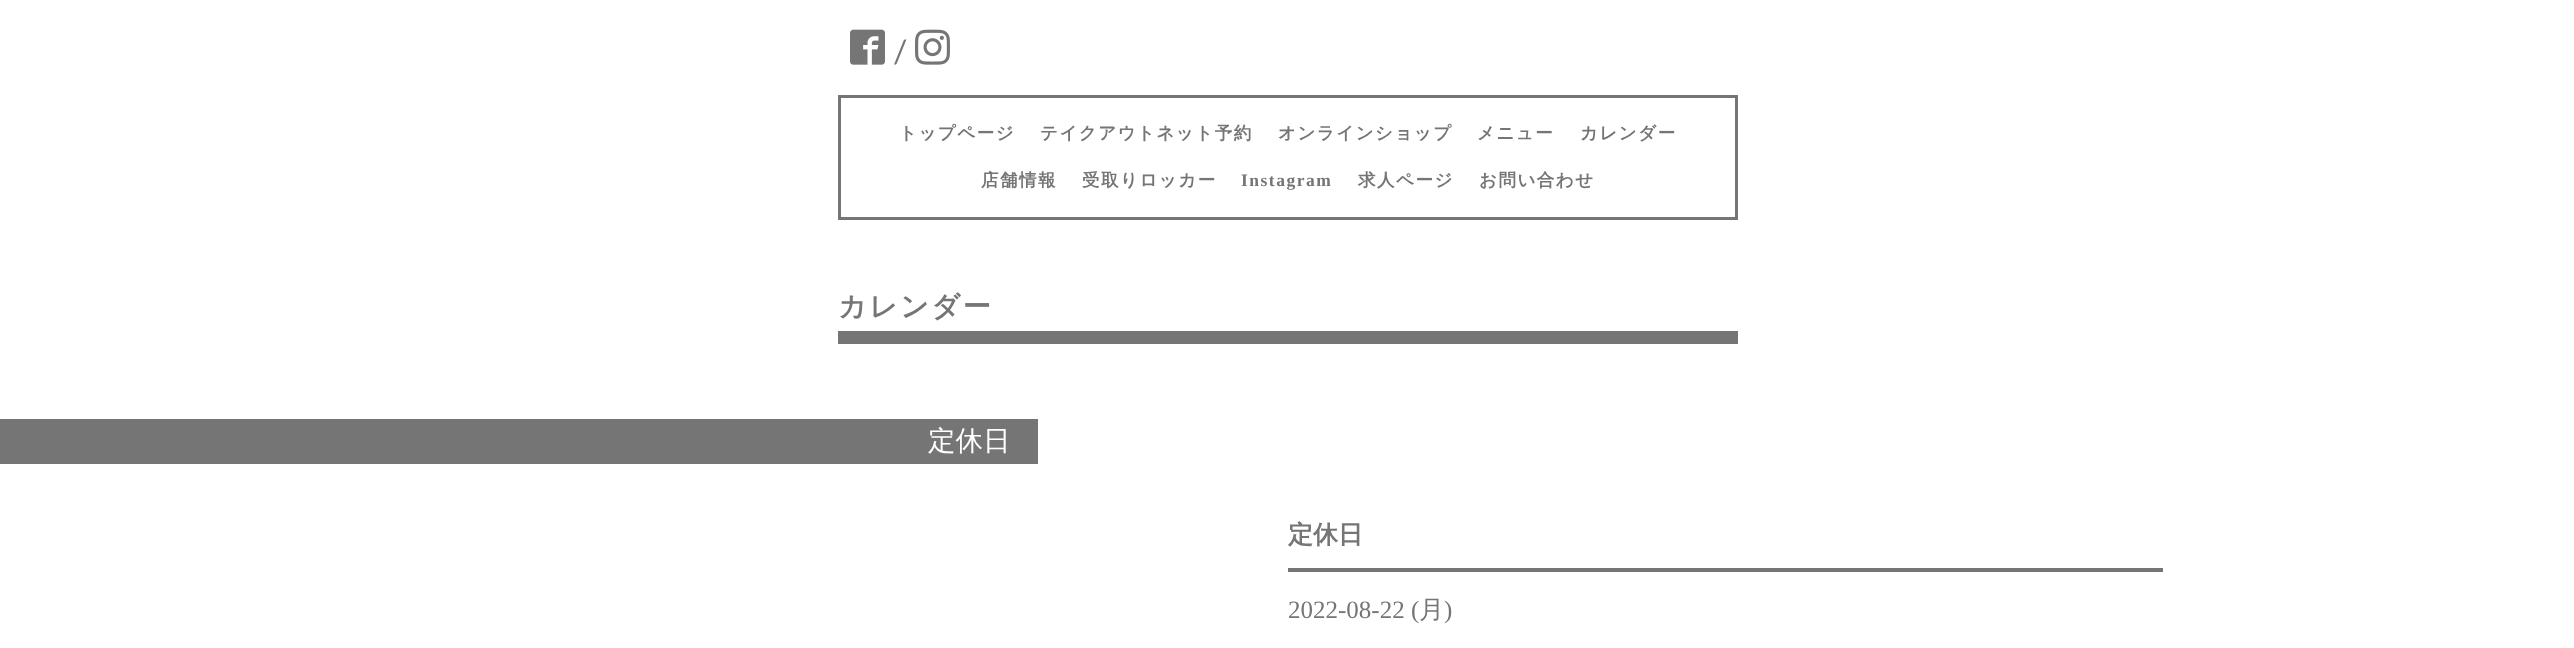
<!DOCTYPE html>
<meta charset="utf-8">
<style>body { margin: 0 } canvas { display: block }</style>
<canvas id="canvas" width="2574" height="648"></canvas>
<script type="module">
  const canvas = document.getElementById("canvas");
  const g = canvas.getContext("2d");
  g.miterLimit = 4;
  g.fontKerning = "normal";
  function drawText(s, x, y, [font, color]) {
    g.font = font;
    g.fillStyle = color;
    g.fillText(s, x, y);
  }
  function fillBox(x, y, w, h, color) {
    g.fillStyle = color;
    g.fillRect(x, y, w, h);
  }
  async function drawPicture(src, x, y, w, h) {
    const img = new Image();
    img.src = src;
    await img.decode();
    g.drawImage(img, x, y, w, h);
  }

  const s1 = ["32px Lato", "#757575"];
  const s2 = ["bold 17.5px WenQuanYi Zen Hei", "#757575"];
  const s3 = ["bold 17.5px Liberation Serif", "#757575"];
  const s4 = ["bold 28px WenQuanYi Zen Hei", "#757575"];
  const s5 = ["500 27.5px WenQuanYi Zen Hei", "#FFFFFF"];
  const s6 = ["bold 25px WenQuanYi Zen Hei", "#757575"];
  const s7 = ["25px Liberation Serif", "#757575"];
  const s8 = ["500 25px WenQuanYi Zen Hei", "#757575"];

  fillBox(0, 0, 2574, 648, "#FFFFFF");
  await drawPicture("pic1.png", 850, 29, 35, 36);
  drawText("/", 893, 63, s1);
  await drawPicture("pic2.png", 915, 29, 35, 36);
  g.strokeStyle = "#757575";
  g.lineWidth = 3;
  g.strokeRect(839.5, 96.5, 897, 122);
  g.letterSpacing = "1.5px";
  drawText("トップページ", 899, 139, s2);
  drawText("テイクアウトネット予約", 1040, 139, s2);
  drawText("オンラインショップ", 1278, 139, s2);
  drawText("メニュー", 1477, 139, s2);
  drawText("カレンダー", 1580, 139, s2);
  drawText("店舗情報", 981, 186, s2);
  drawText("受取りロッカー", 1082, 186, s2);
  drawText("Instagram", 1241, 186, s3);
  drawText("求人ページ", 1358, 186, s2);
  drawText("お問い合わせ", 1479, 186, s2);
  fillBox(838, 331, 900, 13, "#757575");
  g.letterSpacing = "2.5px";
  drawText("カレンダー", 838, 316, s4);
  fillBox(0, 419, 1038, 45, "#757575");
  g.letterSpacing = "0px";
  drawText("定休日", 928, 450, s5);
  drawText("定休日", 1288, 543, s6);
  fillBox(1288, 568, 875, 4, "#757575");
  drawText("2022-08-22 (", 1288, 618, s7);
  drawText("月", 1419, 618, s8);
  drawText(")", 1444, 618, s7);
</script>
